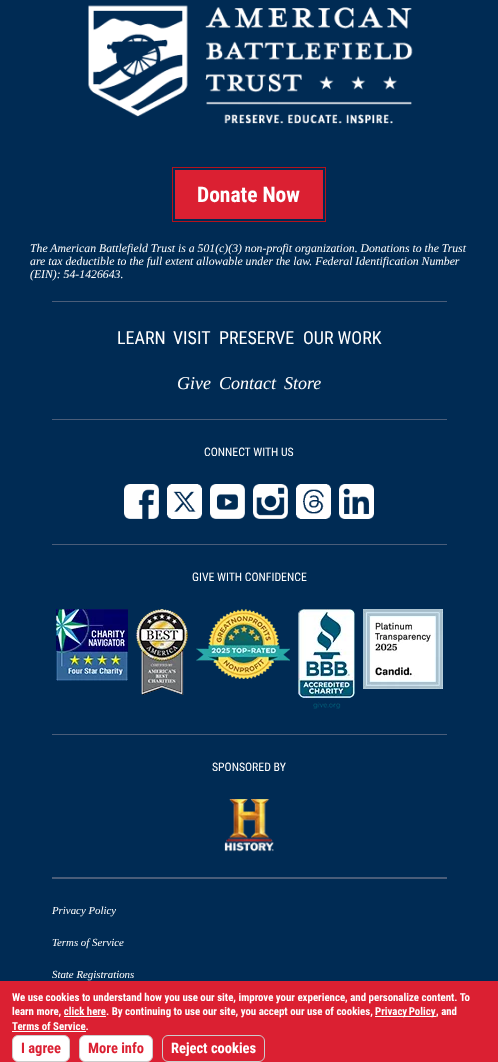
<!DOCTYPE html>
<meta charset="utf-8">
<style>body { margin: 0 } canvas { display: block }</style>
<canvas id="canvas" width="498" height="1062"></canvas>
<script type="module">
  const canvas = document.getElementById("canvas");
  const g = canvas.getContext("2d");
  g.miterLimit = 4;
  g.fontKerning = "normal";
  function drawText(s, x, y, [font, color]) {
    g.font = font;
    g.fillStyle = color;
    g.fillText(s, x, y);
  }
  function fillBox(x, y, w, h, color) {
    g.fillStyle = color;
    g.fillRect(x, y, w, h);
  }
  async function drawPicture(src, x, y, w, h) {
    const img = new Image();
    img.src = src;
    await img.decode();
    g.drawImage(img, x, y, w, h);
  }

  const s1 = ["bold 21.5px Roboto Condensed", "#FFFFFF"];
  const s2 = ["italic 11.75px Liberation Serif", "#FFFFFF"];
  const s3 = ["18px Roboto Condensed", "#FFFFFF"];
  const s4 = ["italic 18px Liberation Serif", "#FFFFFF"];
  const s5 = ["11.75px Roboto Condensed", "#FFFFFF"];
  const s6 = ["italic 10.85px Liberation Serif", "#FFFFFF"];
  const s7 = ["bold 10.85px Roboto Condensed", "#FFFFFF"];
  const s8 = ["bold 14.5px Roboto Condensed", "#DB2032"];
  const s9 = ["bold 14.5px Roboto Condensed", "#FFFFFF"];

  fillBox(0, 0, 498, 1062, "#002B54");
  await drawPicture("pic1.png", 88, 5, 325, 119);
  g.strokeStyle = "#B5121B";
  g.strokeRect(172.5, 167.5, 153, 54);
  fillBox(175, 170, 148, 49, "#DB2032");
  drawText("Donate Now", 197, 202, s1);
  drawText("The American Battlefield Trust is a 501(c)(3) non-profit organization. Donations to the Trust", 30, 252, s2);
  drawText("are tax deductible to the full extent allowable under the law. Federal Identification Number", 30, 265, s2);
  drawText("(EIN): 54-1426643.", 30, 278, s2);
  fillBox(52, 301, 395, 1, "#4A5D79");
  fillBox(52, 419, 395, 1, "#4A5D79");
  drawText("LEARN", 117, 344, s3);
  drawText("VISIT", 173, 344, s3);
  drawText("PRESERVE", 219, 344, s3);
  drawText("OUR WORK", 303, 344, s3);
  drawText("Give", 177, 389, s4);
  drawText("Contact", 219, 389, s4);
  drawText("Store", 284, 389, s4);
  fillBox(52, 877, 395, 2, "#4A5D79");
  fillBox(52, 544, 395, 1, "#4A5D79");
  drawText("CONNECT WITH US", 204, 456, s5);
  await drawPicture("pic2.png", 124, 484, 35, 35);
  await drawPicture("pic3.png", 167, 484, 35, 35);
  await drawPicture("pic4.png", 210, 484, 35, 35);
  await drawPicture("pic5.png", 253, 484, 35, 35);
  await drawPicture("pic6.png", 296, 484, 35, 35);
  await drawPicture("pic7.png", 339, 484, 35, 35);
  fillBox(52, 734, 395, 1, "#4A5D79");
  drawText("GIVE WITH CONFIDENCE", 192, 581, s5);
  await drawPicture("pic8.png", 56, 609, 72, 72);
  await drawPicture("pic9.png", 136, 609, 52, 86);
  await drawPicture("pic10.png", 196, 609, 94, 70);
  await drawPicture("pic11.png", 298, 609, 57, 100);
  await drawPicture("pic12.png", 363, 609, 80, 80);
  drawText("SPONSORED BY", 212, 771, s5);
  await drawPicture("pic13.png", 224, 799, 50, 53);
  drawText("Privacy Policy", 52, 914, s6);
  drawText("Terms of Service", 52, 946, s6);
  drawText("State Registrations", 52, 978, s6);
  fillBox(0, 981, 498, 81, "#DB2032");
  drawText("We use cookies to understand how you use our site, improve your experience, and personalize content. To", 12, 1001, s7);
  drawText("learn more, click here. By continuing to use our site, you accept our use of cookies,", 12, 1015, s7);
  fillBox(64, 1016, 42, 1, "#FFFFFF");
  fillBox(375, 1016, 61, 1, "#FFFFFF");
  g.wordSpacing = "-1px";
  drawText("Privacy Policy", 375, 1015, s7);
  g.wordSpacing = "0px";
  drawText(", and", 436, 1015, s7);
  drawText("Terms of Service.", 12, 1030, s7);
  fillBox(12, 1031, 74, 1, "#FFFFFF");
  g.beginPath();
  g.roundRect(12.5, 1035.5, 57, 26, 5.5);
  g.fill();
  g.strokeStyle = "#CDCCCC";
  g.stroke();
  drawText("I agree", 21, 1053, s8);
  g.fillStyle = "#FFFFFF";
  g.beginPath();
  g.roundRect(79.5, 1035.5, 73, 26, 5.5);
  g.fill();
  g.stroke();
  drawText("More info", 88, 1053, s8);
  g.beginPath();
  g.roundRect(162.5, 1035.5, 102, 26, 5.5);
  g.stroke();
  drawText("Reject cookies", 171, 1053, s9);
</script>
